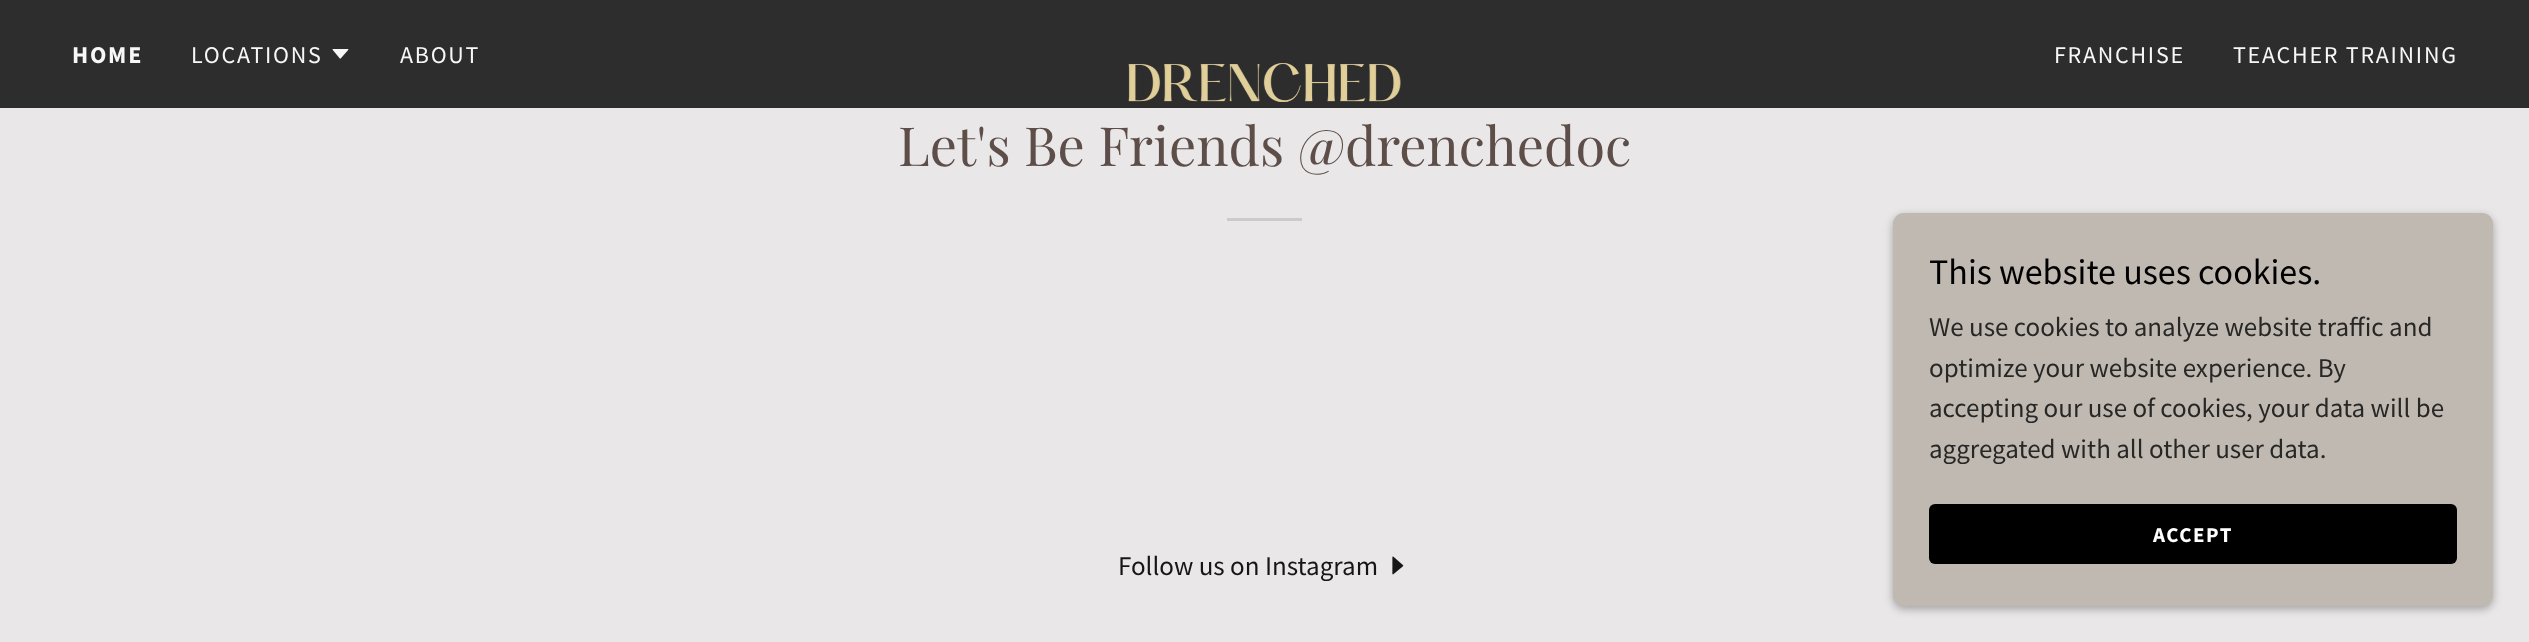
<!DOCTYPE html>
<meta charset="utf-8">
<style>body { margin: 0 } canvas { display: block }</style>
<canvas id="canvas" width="2529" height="642"></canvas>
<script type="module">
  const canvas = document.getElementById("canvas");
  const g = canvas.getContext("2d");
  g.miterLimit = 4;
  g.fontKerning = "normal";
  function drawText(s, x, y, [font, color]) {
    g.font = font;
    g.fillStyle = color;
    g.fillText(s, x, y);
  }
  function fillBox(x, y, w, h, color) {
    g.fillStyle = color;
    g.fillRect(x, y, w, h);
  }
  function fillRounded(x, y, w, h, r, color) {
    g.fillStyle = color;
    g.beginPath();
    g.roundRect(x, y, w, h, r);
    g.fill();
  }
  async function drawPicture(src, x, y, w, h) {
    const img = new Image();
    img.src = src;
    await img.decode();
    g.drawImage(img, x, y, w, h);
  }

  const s1 = ["bold 24px Source Sans Pro", "#F7F7F7"];
  const s2 = ["24px Source Sans Pro", "#F7F7F7"];
  const s3 = ["54px Playfair Display", "#5D4E49"];
  const s4 = ["27px Source Sans Pro", "#161616"];
  const s5 = ["36px Source Sans Pro", "#000000"];
  const s6 = ["27px Source Sans Pro", "#272726"];
  const s7 = ["bold 21px Source Sans Pro", "#FFFFFF"];

  fillBox(0, 0, 2529, 642, "#2D2D2D");
  g.letterSpacing = "1.75px";
  drawText("HOME", 72, 63, s1);
  drawText("LOCATIONS", 191, 63, s2);
  await drawPicture("pic1.png", 332, 49, 17, 10);
  drawText("ABOUT", 400, 63, s2);
  drawText("FRANCHISE", 2054, 63, s2);
  drawText("TEACHER TRAINING", 2233, 63, s2);
  await drawPicture("pic2.png", 1128, 63, 273, 39);
  fillBox(0, 108, 2529, 534, "#E9E7E7");
  g.letterSpacing = "0px";
  drawText("Let's Be Friends @drenchedoc", 898, 166, s3);
  fillBox(1227, 218, 75, 3, "#CFCACA");
  drawText("Follow us on Instagram", 1118, 575, s4);
  await drawPicture("pic3.png", 1392, 556, 12, 19);
  g.fillStyle = "rgba(0, 0, 0, 0.3)";
  g.filter = "blur(4.5px)";
  g.beginPath();
  g.roundRect(1893, 216, 600, 393, 11);
  g.fill();
  g.filter = "none";
  fillRounded(1893, 213, 600, 393, 11, "#C0B9B1");
  drawText("This website uses cookies.", 1929, 284, s5);
  drawText("We use cookies to analyze website traffic and", 1929, 336, s6);
  drawText("optimize your website experience. By", 1929, 377, s6);
  drawText("accepting our use of cookies, your data will be", 1929, 417, s6);
  drawText("aggregated with all other user data.", 1929, 458, s6);
  fillRounded(1929, 504, 528, 60, 6, "#000000");
  g.letterSpacing = "1.5px";
  drawText("ACCEPT", 2153, 542, s7);
</script>
